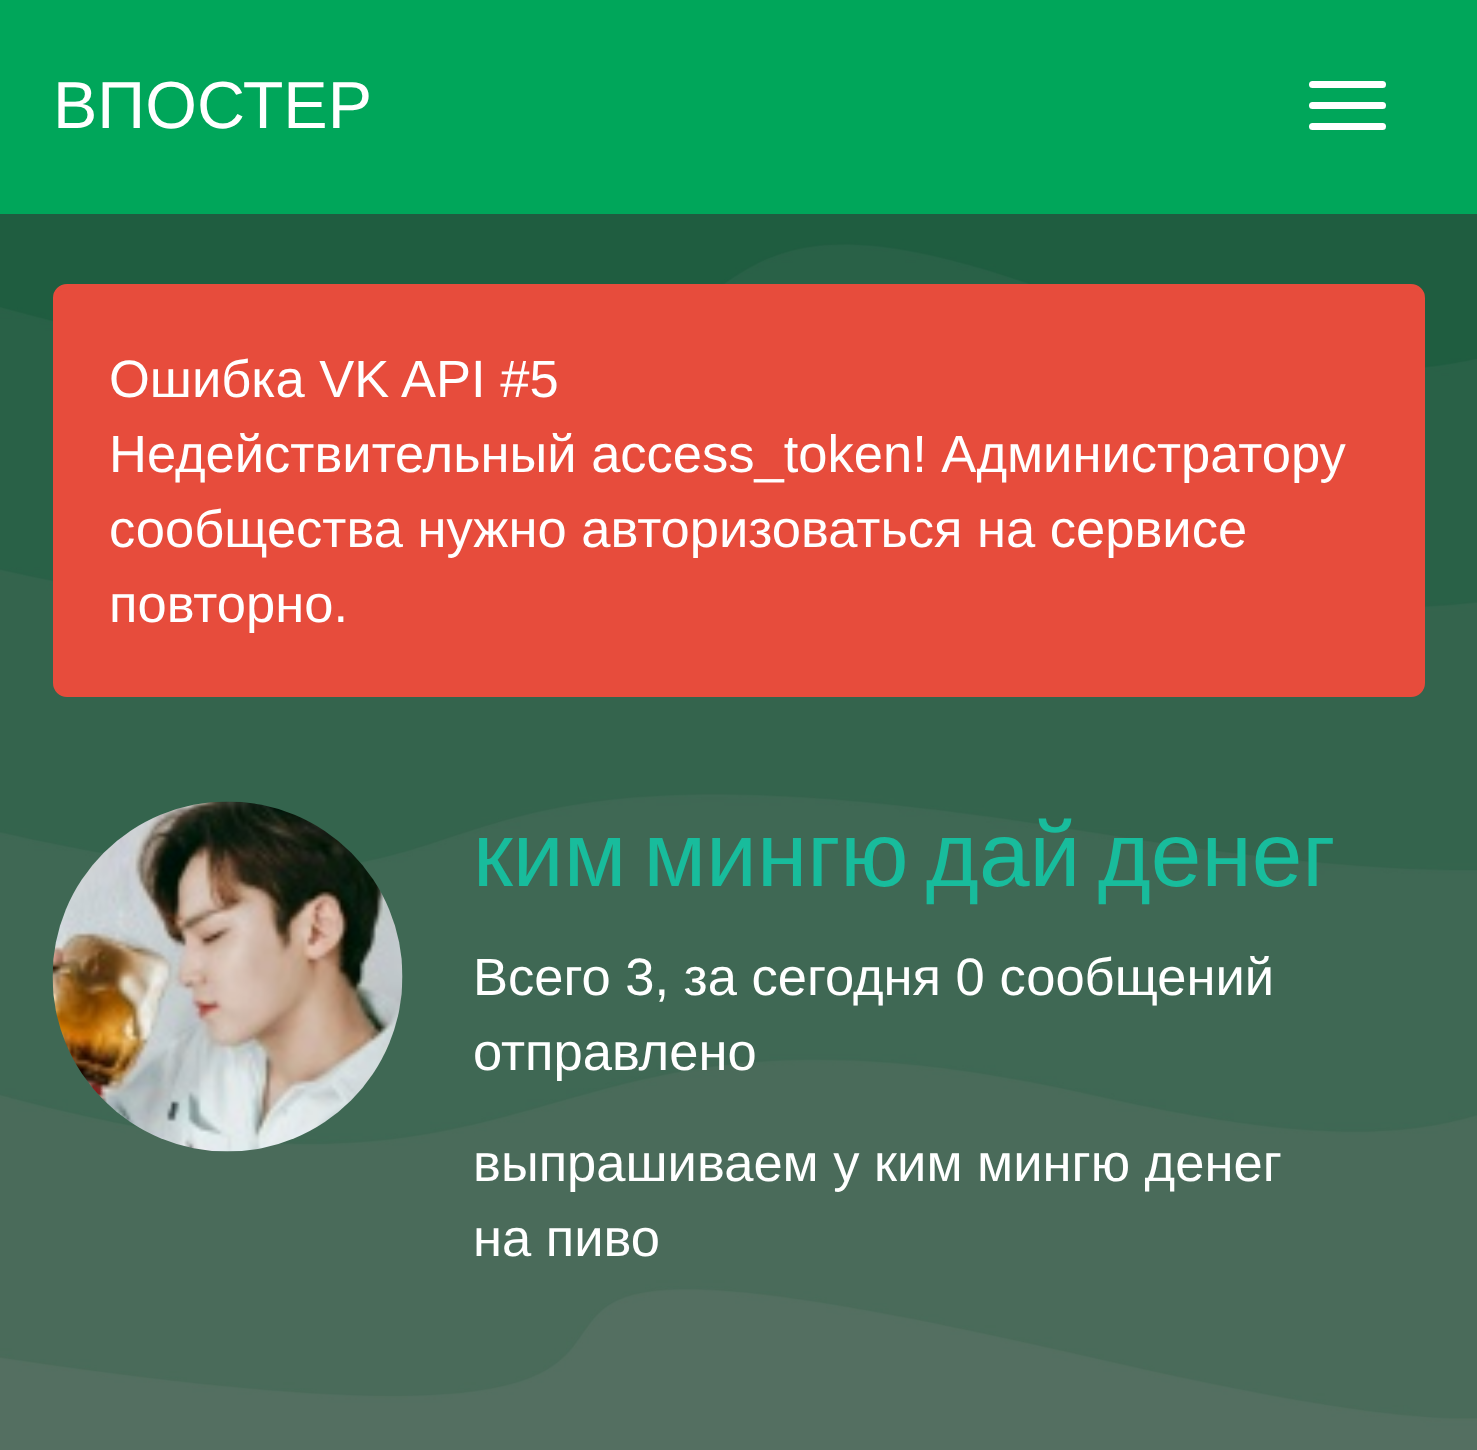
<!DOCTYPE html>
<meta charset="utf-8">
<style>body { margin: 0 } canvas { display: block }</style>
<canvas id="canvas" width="1477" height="1450"></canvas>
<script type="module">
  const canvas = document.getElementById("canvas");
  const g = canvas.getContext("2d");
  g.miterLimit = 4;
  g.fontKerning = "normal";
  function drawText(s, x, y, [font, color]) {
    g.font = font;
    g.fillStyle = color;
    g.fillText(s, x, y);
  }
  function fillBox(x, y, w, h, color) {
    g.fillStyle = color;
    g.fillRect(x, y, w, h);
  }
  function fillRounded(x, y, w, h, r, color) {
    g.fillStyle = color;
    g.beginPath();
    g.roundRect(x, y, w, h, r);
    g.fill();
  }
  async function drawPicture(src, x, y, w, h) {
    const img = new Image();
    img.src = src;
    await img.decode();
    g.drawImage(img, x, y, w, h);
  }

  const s1 = ["66.5px Liberation Sans", "#FFFFFF"];
  const s2 = ["52.5px Liberation Sans", "#FFFFFF"];
  const s3 = ["91px Liberation Sans", "#18BC9C"];

  fillBox(0, 0, 1477, 1450, "#FFFFFF");
  await drawPicture("pic1.png", 0, 214, 1477, 1236);
  fillBox(0, 0, 1477, 214, "#00A65A");
  drawText("ВПОСТЕР", 53, 128, s1);
  fillRounded(1309, 81, 77, 7, 3.5, "#FFFFFF");
  fillRounded(1309, 102, 77, 7, 3.5, "#FFFFFF");
  fillRounded(1309, 123, 77, 7, 3.5, "#FFFFFF");
  fillBox(0, 214, 1477, 1236, "rgba(0, 0, 0, 0.5)");
  g.fillStyle = "#E74C3C";
  g.beginPath();
  g.roundRect(55, 286, 1368, 409, 12);
  g.fill();
  g.strokeStyle = "#E74C3C";
  g.lineWidth = 4;
  g.stroke();
  drawText("Ошибка VK API #5", 109, 397, s2);
  drawText("Недействительный access_token! Администратору", 109, 472, s2);
  drawText("сообщества нужно авторизоваться на сервисе", 109, 547, s2);
  drawText("повторно.", 109, 622, s2);
  await drawPicture("pic2.png", 52, 801, 351, 351);
  g.wordSpacing = "-8px";
  drawText("ким мингю дай денег", 473, 886, s3);
  g.wordSpacing = "0px";
  drawText("Всего 3, за сегодня 0 сообщений", 473, 995, s2);
  drawText("отправлено", 473, 1070, s2);
  drawText("выпрашиваем у ким мингю денег", 473, 1181, s2);
  drawText("на пиво", 473, 1256, s2);
</script>
